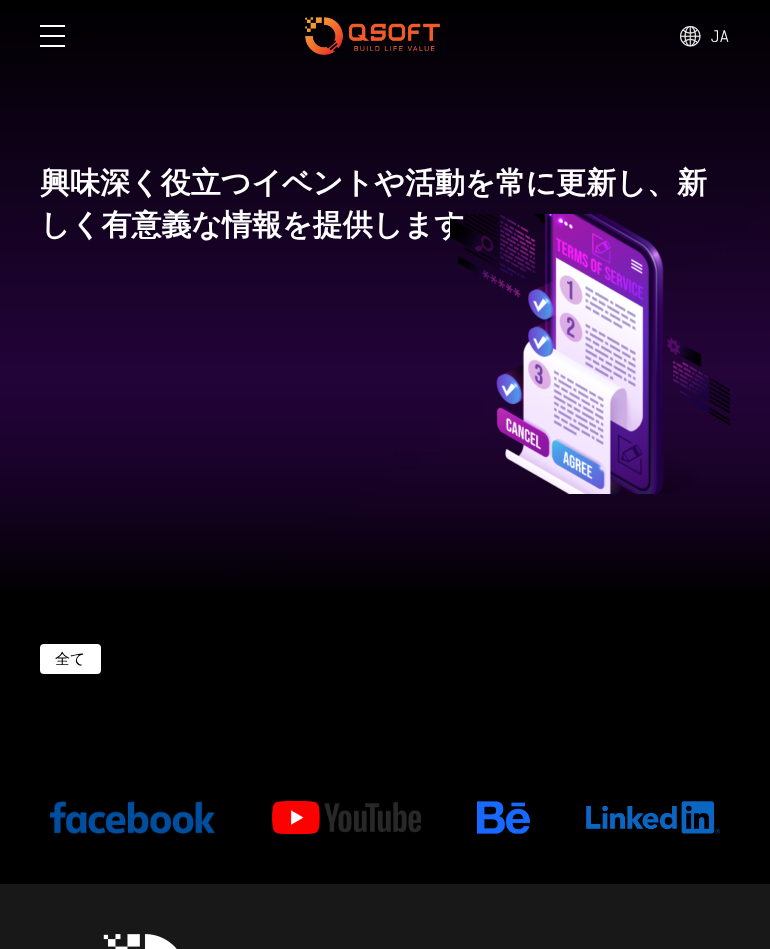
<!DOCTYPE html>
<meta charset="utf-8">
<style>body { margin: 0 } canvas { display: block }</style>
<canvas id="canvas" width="770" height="949"></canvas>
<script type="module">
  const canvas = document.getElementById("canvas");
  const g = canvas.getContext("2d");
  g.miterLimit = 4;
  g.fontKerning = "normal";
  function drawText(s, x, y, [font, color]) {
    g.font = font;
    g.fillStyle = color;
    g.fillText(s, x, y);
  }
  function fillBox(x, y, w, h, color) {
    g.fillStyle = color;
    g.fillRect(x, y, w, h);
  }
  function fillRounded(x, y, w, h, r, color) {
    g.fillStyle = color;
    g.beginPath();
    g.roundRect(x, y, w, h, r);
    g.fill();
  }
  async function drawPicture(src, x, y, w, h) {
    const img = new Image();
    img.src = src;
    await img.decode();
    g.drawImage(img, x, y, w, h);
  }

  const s1 = ["16px Dosis", "#FFFFFF"];
  const s2 = ["bold 30px WenQuanYi Zen Hei", "#FFFFFF"];
  const s3 = ["500 15px WenQuanYi Zen Hei", "#000000"];

  fillBox(0, 0, 770, 949, "#000000");
  await drawPicture("pic3.png", 0, 0, 770, 594);
  fillBox(40, 25, 25, 2, "#FFFFFF");
  fillBox(40, 35, 25, 2, "#FFFFFF");
  fillBox(40, 45, 25, 2, "#FFFFFF");
  await drawPicture("pic1.png", 305, 17, 135, 38);
  await drawPicture("pic2.png", 680, 26, 21, 21);
  g.letterSpacing = "1px";
  drawText("JA", 711, 42, s1);
  g.letterSpacing = "0px";
  drawText("興味深く役立つイベントや活動を常に更新し、新", 40, 193, s2);
  drawText("しく有意義な情報を提供します", 40, 235, s2);
  await drawPicture("pic4.png", 450, 214, 280, 280);
  fillRounded(40, 644, 61, 30, 4, "#FFFFFF");
  drawText("全て", 55, 664, s3);
  await drawPicture("pic5.png", 50, 801, 165, 33);
  await drawPicture("pic6.png", 272, 801, 149, 33);
  await drawPicture("pic7.png", 477, 801, 53, 33);
  await drawPicture("pic8.png", 586, 801, 134, 33);
  fillBox(0, 884, 770, 65, "#181818");
  await drawPicture("pic9.png", 103, 934, 74, 15);
</script>
